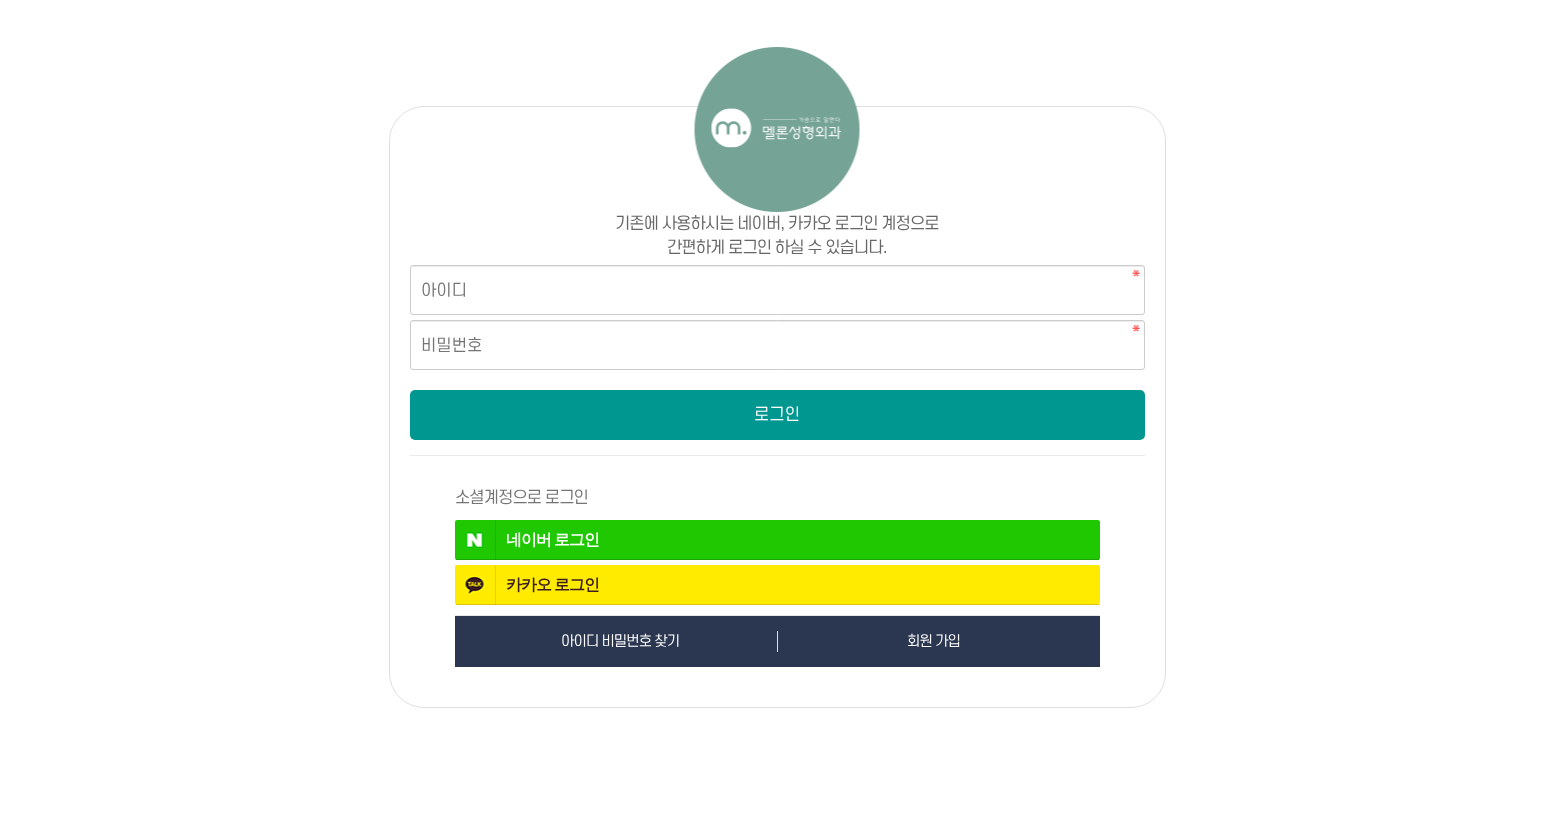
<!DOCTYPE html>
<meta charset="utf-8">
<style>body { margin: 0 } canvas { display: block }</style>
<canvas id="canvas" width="1554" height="814"></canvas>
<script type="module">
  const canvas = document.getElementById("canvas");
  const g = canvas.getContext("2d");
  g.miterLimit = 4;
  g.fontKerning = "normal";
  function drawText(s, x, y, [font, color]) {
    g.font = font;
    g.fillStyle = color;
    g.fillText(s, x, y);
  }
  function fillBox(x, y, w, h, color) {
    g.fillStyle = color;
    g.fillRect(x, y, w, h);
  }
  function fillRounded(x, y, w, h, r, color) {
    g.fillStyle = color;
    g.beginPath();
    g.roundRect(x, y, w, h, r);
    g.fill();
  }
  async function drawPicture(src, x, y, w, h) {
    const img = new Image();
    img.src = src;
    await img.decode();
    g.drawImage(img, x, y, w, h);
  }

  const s1 = ["16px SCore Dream", "#666666"];
  const s2 = ["16px SCore Dream", "#757575"];
  const s3 = ["16px SCore Dream", "#FFFFFF"];
  const s4 = ["bold 16px WenQuanYi Zen Hei", "#FFFFFF"];
  const s5 = ["bold 16px WenQuanYi Zen Hei", "#3C1E1E"];
  const s6 = ["14px SCore Dream", "#FFFFFF"];

  fillBox(0, 0, 1554, 814, "#FFFFFF");
  g.beginPath();
  g.roundRect(389.5, 106.5, 776, 601, 34.5);
  g.strokeStyle = "#DFDFDF";
  g.stroke();
  await drawPicture("pic1.png", 694, 47, 166, 165);
  g.letterSpacing = "-1px";
  drawText("기존에 사용하시는 네이버, 카카오 로그인 계정으로", 615, 229, s1);
  drawText("간편하게 로그인 하실 수 있습니다.", 667, 253, s1);
  await drawPicture("pic2.png", 1132, 270, 8, 7);
  g.fillStyle = "#ECECEC";
  g.beginPath();
  g.moveTo(412, 267);
  g.lineTo(1142, 267);
  g.bezierCurveTo(1143, 267, 1144, 268, 1144, 269);
  g.lineTo(1144, 267);
  g.lineTo(1142, 266);
  g.lineTo(413, 266);
  g.lineTo(411, 267);
  g.closePath();
  g.fill();
  g.beginPath();
  g.roundRect(410.5, 265.5, 734, 49, 2.5);
  g.strokeStyle = "#CCCCCC";
  g.stroke();
  g.letterSpacing = "0px";
  drawText("아이디", 421, 296, s2);
  await drawPicture("pic2.png", 1132, 325, 8, 7);
  g.fillStyle = "#ECECEC";
  g.beginPath();
  g.moveTo(412, 322);
  g.lineTo(1142, 322);
  g.bezierCurveTo(1143, 322, 1144, 323, 1144, 324);
  g.lineTo(1144, 322);
  g.lineTo(1142, 321);
  g.lineTo(413, 321);
  g.lineTo(411, 322);
  g.closePath();
  g.fill();
  g.beginPath();
  g.roundRect(410.5, 320.5, 734, 49, 2.5);
  g.stroke();
  drawText("비밀번호", 421, 351, s2);
  fillRounded(410, 390, 735, 50, 5, "#009790");
  drawText("로그인", 754, 420, s3);
  fillBox(410, 455, 735, 1, "#EDEAEA");
  g.letterSpacing = "-1px";
  drawText("소셜계정으로 로그인", 455, 503, s2);
  fillRounded(455, 520, 645, 40, 2, "#1FC800");
  fillBox(495, 520, 1, 40, "#1CB400");
  await drawPicture("pic3.png", 465, 532, 19, 16);
  fillBox(456, 559, 643, 1, "#1EA505");
  fillBox(495, 559, 1, 1, "#1B9505");
  drawText("네이버", 506, 545, s4);
  drawText("로그인", 554, 545, s4);
  fillRounded(455, 565, 645, 40, 2, "#FFEB00");
  fillBox(495, 565, 1, 40, "#E6D400");
  await drawPicture("pic4.png", 463, 575, 23, 19);
  fillBox(456, 604, 643, 1, "#E2C10A");
  fillBox(495, 604, 1, 1, "#CBAE09");
  drawText("카카오", 506, 590, s5);
  drawText("로그인", 554, 590, s5);
  fillBox(455, 616, 645, 51, "#2B3751");
  fillBox(455, 615, 645, 1, "#E8E8E8");
  fillBox(777, 631, 1, 21, "#DDDDDD");
  drawText("아이디 비밀번호 찾기", 561, 646, s6);
  drawText("회원 가입", 907, 646, s6);
</script>
